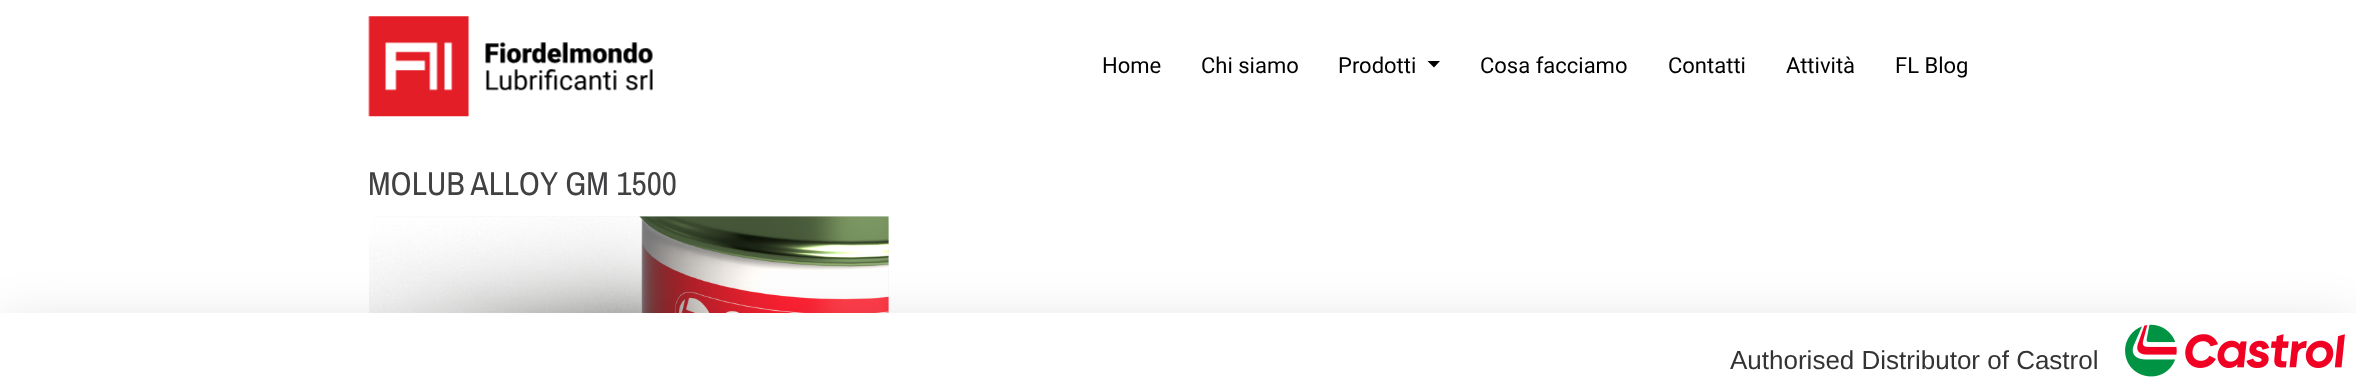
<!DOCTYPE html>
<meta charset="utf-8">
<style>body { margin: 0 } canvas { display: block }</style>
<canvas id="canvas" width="2356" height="388"></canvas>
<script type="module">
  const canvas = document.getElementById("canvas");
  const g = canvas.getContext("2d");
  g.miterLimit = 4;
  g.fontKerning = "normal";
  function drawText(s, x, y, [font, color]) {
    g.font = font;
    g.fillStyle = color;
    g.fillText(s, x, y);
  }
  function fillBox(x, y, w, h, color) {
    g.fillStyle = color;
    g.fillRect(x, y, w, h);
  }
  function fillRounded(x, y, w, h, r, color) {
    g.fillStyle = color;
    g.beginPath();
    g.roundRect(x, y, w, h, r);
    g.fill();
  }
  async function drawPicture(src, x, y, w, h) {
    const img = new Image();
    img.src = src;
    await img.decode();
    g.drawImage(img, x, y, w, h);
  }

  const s1 = ["22px Roboto", "#000000"];
  const s2 = ["36px Pragati Narrow", "#414042"];
  const s3 = ["26px Liberation Sans", "#333333"];

  fillBox(0, 0, 2356, 388, "#FFFFFF");
  await drawPicture("pic1.png", 368, 16, 285, 101);
  drawText("Home", 1102, 73, s1);
  drawText("Chi siamo", 1201, 73, s1);
  drawText("Prodotti", 1338, 73, s1);
  g.beginPath();
  g.moveTo(1427.5, 61);
  g.lineTo(1440, 61);
  g.lineTo(1434, 67.5);
  g.closePath();
  g.fill();
  drawText("Cosa facciamo", 1480, 73, s1);
  drawText("Contatti", 1668, 73, s1);
  drawText("Attività", 1786, 73, s1);
  drawText("FL Blog", 1895, 73, s1);
  drawText("MOLUB ALLOY GM 1500", 368, 195, s2);
  fillRounded(369, 216, 520, 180, 8, "#F3F4F4");
  await drawPicture("pic2.png", 369, 216, 520, 97);
  g.fillStyle = "rgba(0, 0, 0, 0.18)";
  g.filter = "blur(30px)";
  g.beginPath();
  g.rect(0, 333, 2356, 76);
  g.fill();
  g.filter = "none";
  fillBox(0, 313, 2356, 75, "#FFFFFF");
  drawText("Authorised Distributor of Castrol", 1730, 369, s3);
  await drawPicture("pic3.png", 2125, 324, 220, 53);
</script>
